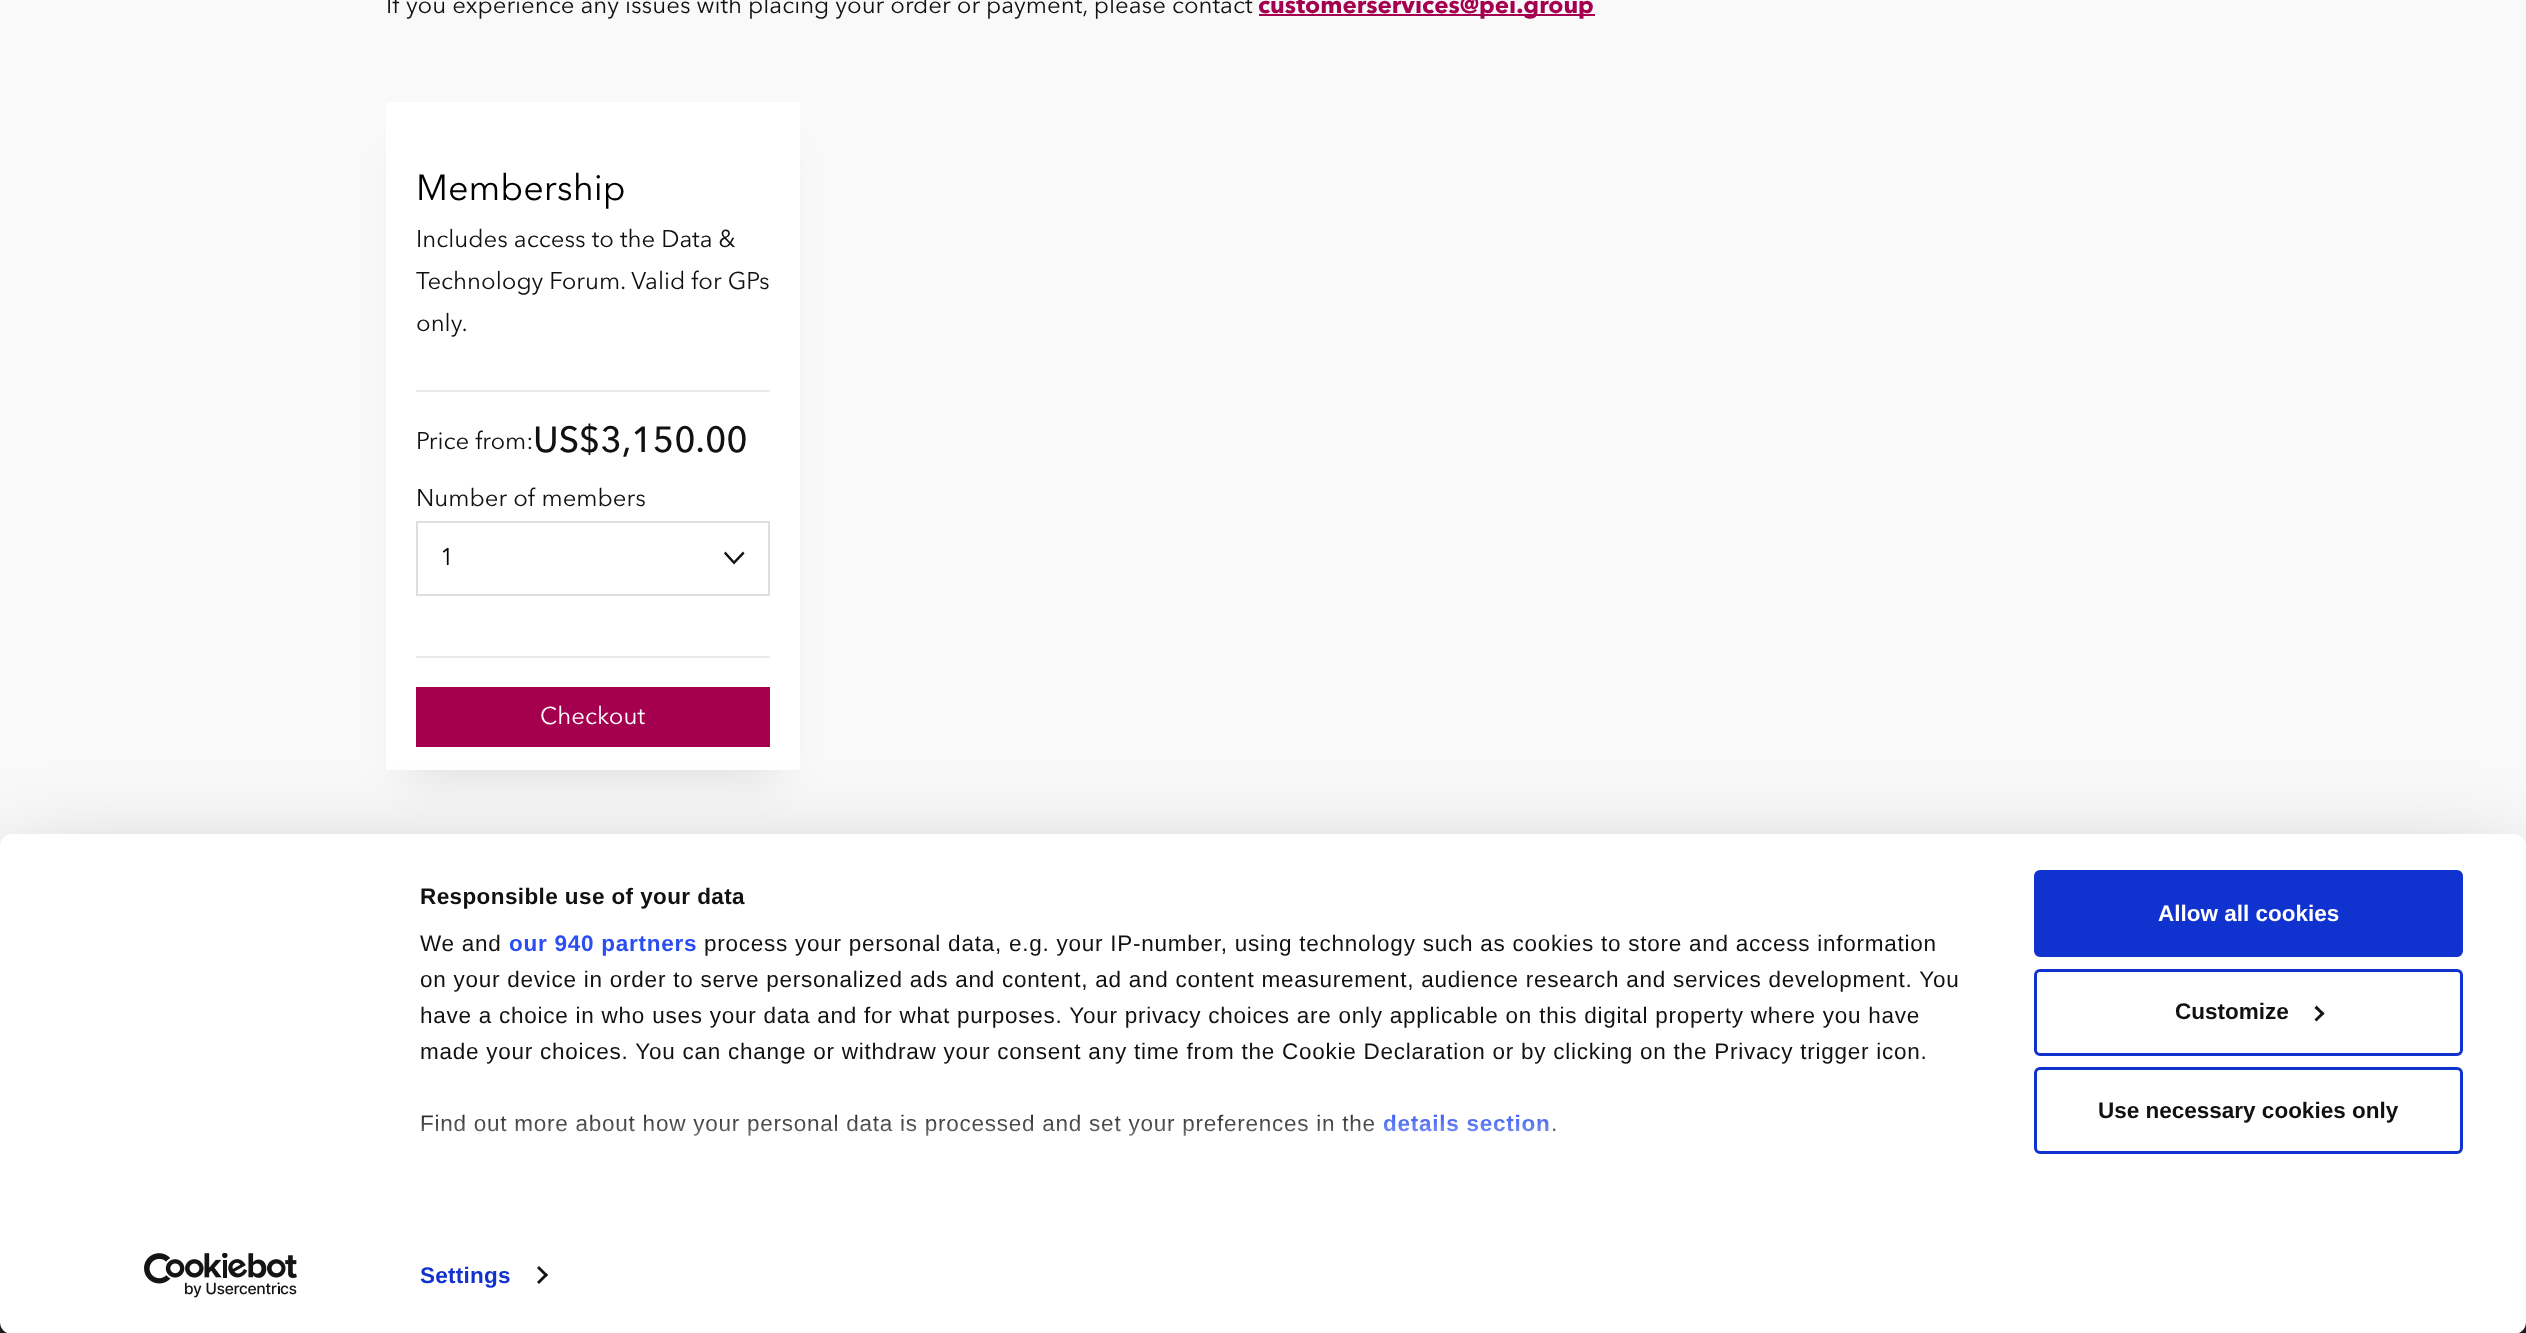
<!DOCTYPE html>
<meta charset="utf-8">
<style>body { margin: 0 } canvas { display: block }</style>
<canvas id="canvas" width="2526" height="1333"></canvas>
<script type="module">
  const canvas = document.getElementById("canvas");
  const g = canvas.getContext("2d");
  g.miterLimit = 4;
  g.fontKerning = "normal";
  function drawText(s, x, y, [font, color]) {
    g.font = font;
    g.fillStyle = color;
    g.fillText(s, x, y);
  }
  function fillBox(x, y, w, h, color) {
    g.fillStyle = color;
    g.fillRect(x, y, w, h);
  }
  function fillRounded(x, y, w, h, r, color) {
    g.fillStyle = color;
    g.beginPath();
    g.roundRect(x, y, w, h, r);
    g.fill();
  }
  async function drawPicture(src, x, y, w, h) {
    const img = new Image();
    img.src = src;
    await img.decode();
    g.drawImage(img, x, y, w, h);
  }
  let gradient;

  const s1 = ["24px Avenir Next", "#111111"];
  const s2 = ["bold 24px Avenir Next", "#A50050"];
  const s3 = ["36px Avenir Next", "#000000"];
  const s4 = ["500 36px Avenir Next", "#111111"];
  const s5 = ["24px Avenir Next", "#000000"];
  const s6 = ["24px Avenir Next", "#FFFFFF"];
  const s7 = ["bold 22.5px Liberation Sans", "#111111"];
  const s8 = ["22.5px Liberation Sans", "#111111"];
  const s9 = ["bold 22.5px Liberation Sans", "#2A4EEF"];
  const s10 = ["bold 22.5px Liberation Sans", "#1032CF"];
  const s11 = ["bold 22.5px Liberation Sans", "#FFFFFF"];

  fillBox(0, 0, 2526, 1333, "#F9F9F9");
  drawText("If you experience any issues with placing your order or payment, please contact", 386, 13, s1);
  fillBox(1259, 14, 336, 2, "#A50050");
  drawText("customerservices@pei.group", 1258, 13, s2);
  g.fillStyle = "rgba(0, 0, 0, 0.1)";
  g.filter = "blur(22.5px)";
  g.beginPath();
  g.rect(408, 155, 369, 622);
  g.fill();
  g.filter = "none";
  fillBox(386, 102, 414, 668, "#FFFFFF");
  drawText("Membership", 416, 200, s3);
  fillBox(416, 390, 354, 2, "#EBEBEB");
  drawText("Includes access to the Data &", 416, 247, s1);
  drawText("Technology Forum. Valid for GPs", 416, 289, s1);
  drawText("only.", 416, 331, s1);
  drawText("Price from:", 416, 449, s1);
  drawText("US$3,150.00", 533, 452, s4);
  drawText("Number of members", 416, 506, s1);
  g.beginPath();
  g.moveTo(734, 561);
  g.lineTo(725.5, 551.5);
  g.lineTo(724, 553.5);
  g.lineTo(734, 564.5);
  g.lineTo(744.5, 553.5);
  g.lineTo(743, 551.5);
  g.closePath();
  g.fill();
  g.strokeStyle = "#DEDEDE";
  g.lineWidth = 2;
  g.strokeRect(417, 522, 352, 73);
  drawText("1", 440, 565, s5);
  fillBox(416, 656, 354, 2, "#EBEBEB");
  fillBox(416, 687, 354, 60, "#A50050");
  drawText("Checkout", 540, 724, s6);
  fillBox(0, 1322, 2526, 11, "#1F1F1F");
  g.fillStyle = "rgba(0, 0, 0, 0.3)";
  g.filter = "blur(52.5px)";
  g.beginPath();
  g.roundRect(0, 879, 2526, 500, 12);
  g.fill();
  g.filter = "none";
  fillRounded(0, 834, 2526, 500, 12, "#FFFFFF");
  g.letterSpacing = "0.4px";
  drawText("Responsible use of your data", 420, 904, s7);
  g.letterSpacing = "0.75px";
  drawText("We and", 420, 951, s8);
  drawText("our 940 partners", 509, 951, s9);
  drawText("process your personal data, e.g. your IP-number, using technology such as cookies to store and access information", 704, 951, s8);
  drawText("on your device in order to serve personalized ads and content, ad and content measurement, audience research and services development. You", 420, 987, s8);
  drawText("have a choice in who uses your data and for what purposes. Your privacy choices are only applicable on this digital property where you have", 420, 1023, s8);
  drawText("made your choices. You can change or withdraw your consent any time from the Cookie Declaration or by clicking on the Privacy trigger icon.", 420, 1059, s8);
  drawText("Find out more about how your personal data is processed and set your preferences in the", 420, 1131, s8);
  drawText("details section", 1383, 1131, s9);
  drawText(".", 1551, 1131, s8);
  gradient = g.createLinearGradient(1191, 1220, 1191, 1107);
  gradient.addColorStop(0, "#FFFFFF");
  gradient.addColorStop(0.5, "rgba(255, 255, 255, 0.8)");
  gradient.addColorStop(1, "rgba(255, 255, 255, 0)");
  g.fillStyle = gradient;
  g.fillRect(422, 1114, 1133, 22);
  g.letterSpacing = "0.25px";
  drawText("Settings", 420, 1283, s10);
  g.fillStyle = "#141414";
  g.beginPath();
  g.moveTo(539, 1266);
  g.lineTo(548, 1275);
  g.lineTo(546, 1277);
  g.lineTo(537, 1268);
  g.closePath();
  g.fill();
  g.beginPath();
  g.moveTo(546, 1273);
  g.lineTo(548, 1275);
  g.lineTo(539, 1284);
  g.lineTo(537, 1282);
  g.closePath();
  g.fill();
  g.fillStyle = "#1032CF";
  g.beginPath();
  g.roundRect(2035.5, 871.5, 426, 84, 4.5);
  g.fill();
  g.strokeStyle = "#1032CF";
  g.lineWidth = 3;
  g.stroke();
  g.letterSpacing = "0px";
  drawText("Allow all cookies", 2158, 921, s11);
  g.beginPath();
  g.roundRect(2035.5, 970.5, 426, 84, 4.5);
  g.stroke();
  drawText("Customize", 2175, 1019, s7);
  g.fillStyle = "#141414";
  g.beginPath();
  g.moveTo(2316.5, 1005.5);
  g.lineTo(2324.5, 1013.5);
  g.lineTo(2322.5, 1015.5);
  g.lineTo(2314.5, 1008);
  g.closePath();
  g.fill();
  g.beginPath();
  g.moveTo(2322.5, 1011.5);
  g.lineTo(2324.5, 1013.5);
  g.lineTo(2316.5, 1021.5);
  g.lineTo(2314.5, 1019.5);
  g.closePath();
  g.fill();
  g.beginPath();
  g.roundRect(2035.5, 1068.5, 426, 84, 4.5);
  g.stroke();
  drawText("Use necessary cookies only", 2098, 1118, s7);
  await drawPicture("pic1.png", 144, 1253, 153, 45);
</script>
